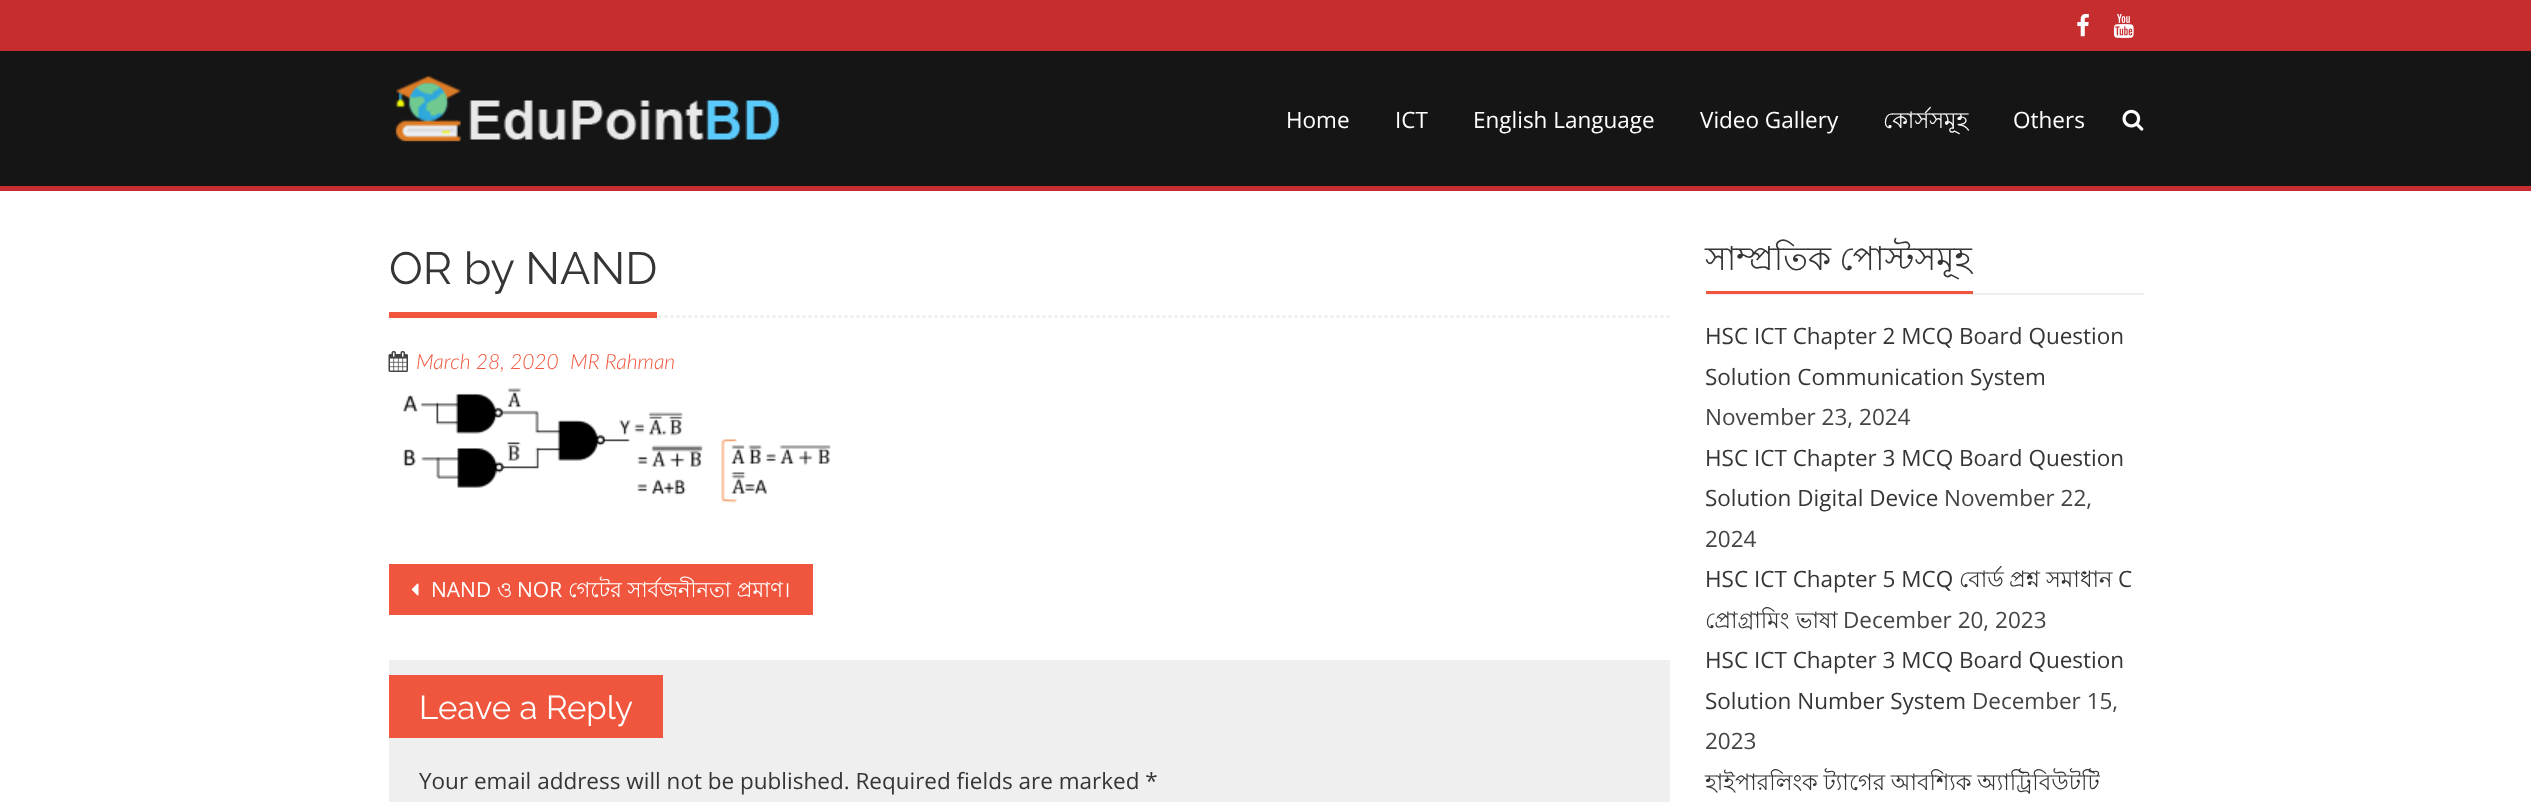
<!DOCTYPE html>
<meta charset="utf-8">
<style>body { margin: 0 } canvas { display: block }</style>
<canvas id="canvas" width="2531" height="802"></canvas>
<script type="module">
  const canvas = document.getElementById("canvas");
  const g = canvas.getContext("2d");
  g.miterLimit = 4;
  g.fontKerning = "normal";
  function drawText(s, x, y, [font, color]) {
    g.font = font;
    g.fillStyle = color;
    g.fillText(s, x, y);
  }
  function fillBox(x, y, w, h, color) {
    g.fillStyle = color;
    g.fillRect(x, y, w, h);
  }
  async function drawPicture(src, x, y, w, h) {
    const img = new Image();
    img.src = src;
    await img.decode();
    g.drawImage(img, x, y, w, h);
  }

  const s1 = ["22.5px Open Sans", "#FFFFFF"];
  const s2 = ["22.5px Lohit Bengali", "#FFFFFF"];
  const s3 = ["45px Raleway", "#353535"];
  const s4 = ["italic 300 21px Lato", "#F0563D"];
  const s5 = ["21px Open Sans", "#FFFFFF"];
  const s6 = ["21px Lohit Bengali", "#FFFFFF"];
  const s7 = ["33px Raleway", "#FFFFFF"];
  const s8 = ["22.5px Open Sans", "#353535"];
  const s9 = ["33px Lohit Bengali", "#353535"];
  const s10 = ["22.5px Open Sans", "#444444"];
  const s11 = ["22.5px Lohit Bengali", "#353535"];

  fillBox(0, 0, 2531, 802, "#FFFFFF");
  fillBox(0, 51, 2531, 135, "#151515");
  fillBox(0, 186, 2531, 5, "#C52D2F");
  fillBox(0, 0, 2531, 51, "#C52D2F");
  await drawPicture("pic1.png", 2077, 13, 12, 24);
  await drawPicture("pic2.png", 2113, 13, 21, 25);
  await drawPicture("pic3.png", 395, 76, 386, 66);
  drawText("Home", 1286, 128, s1);
  drawText("ICT", 1395, 128, s1);
  drawText("English Language", 1473, 128, s1);
  drawText("Video Gallery", 1700, 128, s1);
  drawText("কোর্সসমূহ", 1883, 128, s2);
  drawText("Others", 2013, 128, s1);
  await drawPicture("pic4.png", 2122, 109, 22, 22);
  g.beginPath();
  g.moveTo(388.5, 316.5);
  g.lineTo(1669.5, 316.5);
  g.strokeStyle = "#EEEEEE";
  g.lineWidth = 3;
  g.setLineDash([3, 3]);
  g.stroke();
  fillBox(389, 312, 268, 6, "#F0563D");
  drawText("OR by NAND", 389, 284, s3);
  await drawPicture("pic5.png", 388, 351, 20, 21);
  drawText("March 28, 2020", 416, 369, s4);
  drawText("MR Rahman", 570, 369, s4);
  await drawPicture("pic6.png", 403, 388, 428, 115);
  fillBox(389, 564, 424, 51, "#F0563D");
  await drawPicture("pic7.png", 411, 583, 8, 13);
  drawText("NAND", 431, 597, s5);
  drawText("ও", 497, 597, s6);
  drawText("NOR", 517, 597, s5);
  drawText("গেটের সার্বজনীনতা প্রমাণ।", 568, 597, s6);
  fillBox(389, 660, 1281, 142, "#EFEFEF");
  fillBox(389, 675, 274, 63, "#F0563D");
  drawText("Leave a Reply", 419, 719, s7);
  drawText("Your email address will not be published. Required fields are marked *", 419, 789, s8);
  fillBox(1706, 293, 438, 2, "#EEEEEE");
  fillBox(1706, 291, 267, 3, "#F0563D");
  g.wordSpacing = "-1px";
  drawText("সাম্প্রতিক পোস্টসমূহ", 1705, 270, s9);
  g.wordSpacing = "0px";
  drawText("HSC ICT Chapter 2 MCQ Board Question", 1705, 344, s8);
  drawText("Solution Communication System", 1705, 385, s8);
  drawText("November 23, 2024", 1705, 425, s10);
  drawText("HSC ICT Chapter 3 MCQ Board Question", 1705, 466, s8);
  drawText("Solution Digital Device", 1705, 506, s8);
  drawText("November 22,", 1944, 506, s10);
  drawText("2024", 1705, 547, s10);
  drawText("HSC ICT Chapter 5 MCQ", 1705, 587, s8);
  drawText("বোর্ড", 1959, 587, s11);
  drawText("প্রশ্ন", 2009, 587, s11);
  drawText("সমাধান", 2046, 587, s11);
  drawText("C", 2118, 587, s8);
  drawText("প্রোগ্রামিং ভাষা", 1705, 628, s11);
  drawText("December 20, 2023", 1843, 628, s10);
  drawText("HSC ICT Chapter 3 MCQ Board Question", 1705, 668, s8);
  drawText("Solution Number System", 1705, 709, s8);
  drawText("December 15,", 1972, 709, s10);
  drawText("2023", 1705, 749, s10);
  g.wordSpacing = "-0.5px";
  drawText("হাইপারলিংক ট্যাগের আবশ্যিক অ্যাট্রিবিউটটি", 1705, 790, s11);
</script>
